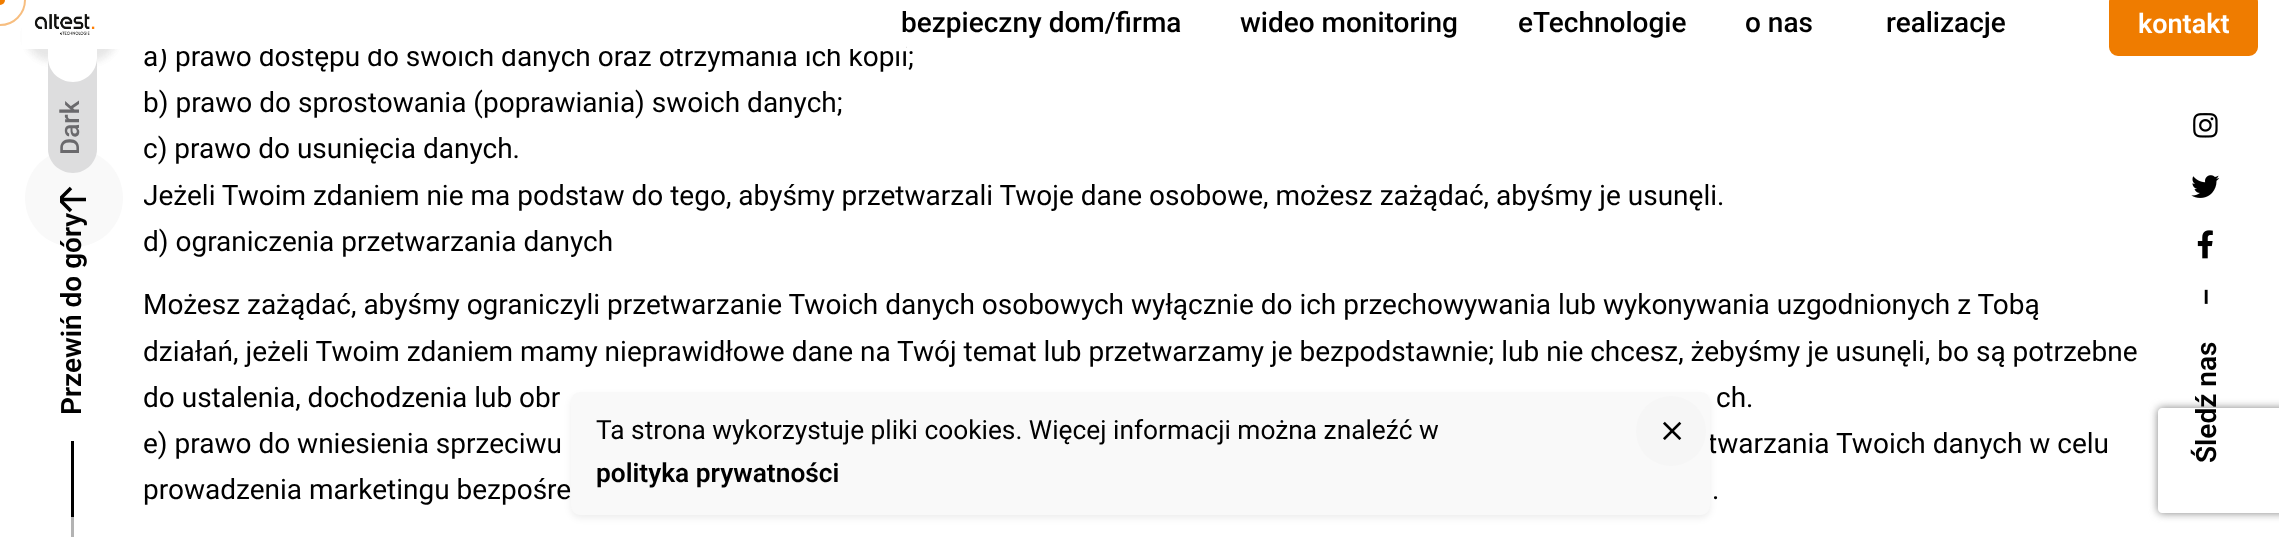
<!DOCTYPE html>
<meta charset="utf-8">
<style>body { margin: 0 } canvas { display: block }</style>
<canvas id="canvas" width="2279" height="537"></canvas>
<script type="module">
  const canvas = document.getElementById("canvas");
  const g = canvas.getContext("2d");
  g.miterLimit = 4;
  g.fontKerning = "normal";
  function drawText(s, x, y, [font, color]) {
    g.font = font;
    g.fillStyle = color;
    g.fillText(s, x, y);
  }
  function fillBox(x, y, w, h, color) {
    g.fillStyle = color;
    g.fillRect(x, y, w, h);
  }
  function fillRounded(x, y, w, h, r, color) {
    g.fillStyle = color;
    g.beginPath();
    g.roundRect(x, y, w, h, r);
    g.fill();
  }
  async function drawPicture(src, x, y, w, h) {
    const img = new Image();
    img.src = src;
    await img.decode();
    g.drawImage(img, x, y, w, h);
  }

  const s1 = ["28px Roboto", "#000000"];
  const s2 = ["500 28px Roboto", "#000000"];
  const s3 = ["600 27px Roboto", "#FFFFFF"];
  const s4 = ["26.3px Roboto", "#000000"];
  const s5 = ["600 26.3px Roboto", "#000000"];

  fillBox(0, 0, 2279, 537, "#FFFFFF");
  g.fillStyle = "#F9F9F9";
  g.beginPath();
  g.arc(74, 198, 49, 0, Math.PI * 2);
  g.fill();
  g.fillStyle = "#DDDDDE";
  g.beginPath();
  g.moveTo(48, 149);
  g.lineTo(48, 16);
  g.bezierCurveTo(48, 2, 59, -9, 73, -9);
  g.bezierCurveTo(86, -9, 97, 2, 97, 16);
  g.lineTo(97, 149);
  g.bezierCurveTo(97, 162, 86, 173, 73, 173);
  g.bezierCurveTo(59, 173, 48, 162, 48, 149);
  g.closePath();
  g.fill();
  g.fillStyle = "rgba(23, 22, 26, 0.05)";
  g.filter = "blur(3.5px)";
  g.beginPath();
  g.roundRect(26, 12, 91, 49, 24.5);
  g.fill();
  g.filter = "none";
  g.filter = "blur(3.5px)";
  g.beginPath();
  g.roundRect(26, 12, 91, 49, 24.5);
  g.fill();
  g.filter = "none";
  g.fillStyle = "#FFFFFF";
  g.beginPath();
  g.moveTo(48, 58);
  g.lineTo(48, 16);
  g.bezierCurveTo(48, 2, 59, -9, 73, -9);
  g.bezierCurveTo(86, -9, 97, 2, 97, 16);
  g.lineTo(97, 58);
  g.bezierCurveTo(97, 71, 86, 82, 73, 82);
  g.bezierCurveTo(59, 82, 48, 71, 48, 58);
  g.closePath();
  g.fill();
  drawText("a) prawo dostępu do swoich danych oraz otrzymania ich kopii;", 143, 66, s1);
  fillBox(22, 0, 884, 49, "#FFFFFF");
  g.beginPath();
  g.arc(0, 0, 25, 0, Math.PI * 2);
  g.strokeStyle = "#F7BE80";
  g.lineWidth = 2;
  g.stroke();
  g.fillStyle = "#EF7C00";
  g.beginPath();
  g.arc(0, 0, 5, 0, Math.PI * 2);
  g.fill();
  g.font = "500 26.3px Roboto";
  g.fillStyle = "#6A696C";
  g.save();
  g.translate(79, 155);
  g.rotate(-90 * Math.PI / 180);
  g.fillText("Dark", 0, 0);
  g.restore();
  g.save();
  g.beginPath();
  g.rect(60, 186, 28, 28);
  g.clip();
  g.beginPath();
  g.moveTo(86, 199.5);
  g.lineTo(59.5, 199.5);
  g.moveTo(59.5, 199.5);
  g.lineTo(71, 211);
  g.moveTo(59.5, 199.5);
  g.lineTo(71, 188);
  g.strokeStyle = "#000000";
  g.lineWidth = 3.5;
  g.lineJoin = "round";
  g.stroke();
  g.restore();
  g.font = "600 28px Roboto";
  g.fillStyle = "#000000";
  g.save();
  g.translate(81, 415);
  g.rotate(-90 * Math.PI / 180);
  g.fillText("Przewiń do góry", 0, 0);
  g.restore();
  fillBox(71, 441, 3, 76, "#000000");
  fillBox(71, 517, 3, 20, "#B3B3B3");
  await drawPicture("pic1.png", 34, 14, 61, 21);
  drawText("bezpieczny dom/firma", 901, 32, s2);
  drawText("wideo monitoring", 1240, 32, s2);
  drawText("eTechnologie", 1518, 32, s2);
  drawText("o nas", 1745, 32, s2);
  drawText("realizacje", 1886, 32, s2);
  g.fillStyle = "#EF7C00";
  g.beginPath();
  g.roundRect(2110, -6, 147, 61, 8);
  g.fill();
  g.strokeStyle = "#EF7C00";
  g.stroke();
  drawText("kontakt", 2138, 33, s3);
  drawText("b) prawo do sprostowania (poprawiania) swoich danych;", 143, 112, s1);
  drawText("c) prawo do usunięcia danych.", 143, 158, s1);
  g.save();
  g.beginPath();
  g.rect(144, 0, 1995, 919);
  g.clip();
  drawText("Jeżeli Twoim zdaniem nie ma podstaw do tego, abyśmy przetwarzali Twoje dane osobowe, możesz zażądać, abyśmy je usunęli.", 143, 205, s1);
  g.restore();
  drawText("d) ograniczenia przetwarzania danych", 143, 251, s1);
  drawText("Możesz zażądać, abyśmy ograniczyli przetwarzanie Twoich danych osobowych wyłącznie do ich przechowywania lub wykonywania uzgodnionych z Tobą", 143, 314, s1);
  drawText("działań, jeżeli Twoim zdaniem mamy nieprawidłowe dane na Twój temat lub przetwarzamy je bezpodstawnie; lub nie chcesz, żebyśmy je usunęli, bo są potrzebne", 143, 361, s1);
  drawText("do ustalenia, dochodzenia lub obr", 143, 407, s1);
  drawText("ch.", 1716, 407, s1);
  drawText("e) prawo do wniesienia sprzeciwu", 143, 453, s1);
  drawText("twarzania Twoich danych w celu", 1708, 453, s1);
  drawText("prowadzenia marketingu bezpośre", 143, 499, s1);
  drawText(".", 1712, 499, s1);
  await drawPicture("pic2.png", 2193, 113, 25, 25);
  await drawPicture("pic3.png", 2191, 175, 29, 23);
  await drawPicture("pic4.png", 2197, 230, 16, 29);
  g.font = "600 28px Roboto";
  g.save();
  g.translate(2216, 306);
  g.rotate(-90 * Math.PI / 180);
  g.fillText("–", 0, 0);
  g.restore();
  g.save();
  g.beginPath();
  g.moveTo(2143, 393);
  g.lineTo(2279, 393);
  g.lineTo(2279, 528);
  g.lineTo(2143, 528);
  g.closePath();
  g.moveTo(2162, 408);
  g.lineTo(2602, 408);
  g.bezierCurveTo(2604, 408, 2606, 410, 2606, 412);
  g.lineTo(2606, 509);
  g.bezierCurveTo(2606, 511, 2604, 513, 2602, 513);
  g.lineTo(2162, 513);
  g.bezierCurveTo(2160, 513, 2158, 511, 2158, 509);
  g.lineTo(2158, 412);
  g.bezierCurveTo(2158, 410, 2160, 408, 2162, 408);
  g.closePath();
  g.clip("evenodd");
  g.fillStyle = "#808080";
  g.filter = "blur(4.5px)";
  g.beginPath();
  g.roundRect(2158, 408, 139, 105, 4);
  g.fill();
  g.filter = "none";
  g.restore();
  g.save();
  g.translate(2216, 463);
  g.rotate(-90 * Math.PI / 180);
  g.fillText("Śledź nas", 0, 0);
  g.restore();
  g.fillStyle = "rgba(0, 0, 0, 0.07)";
  g.filter = "blur(3.5px)";
  g.beginPath();
  g.roundRect(571, 396, 1139, 122, 9);
  g.fill();
  g.filter = "none";
  fillRounded(571, 392, 1139, 123, 9, "#F9F9F9");
  drawText("Ta strona wykorzystuje pliki cookies. Więcej informacji można znaleźć w", 596, 439, s4);
  drawText("polityka prywatności", 596, 482, s5);
  g.fillStyle = "#F6F6F6";
  g.beginPath();
  g.arc(1671, 431, 35, 0, Math.PI * 2);
  g.fill();
  await drawPicture("pic5.png", 1663, 421, 19, 19);
</script>
